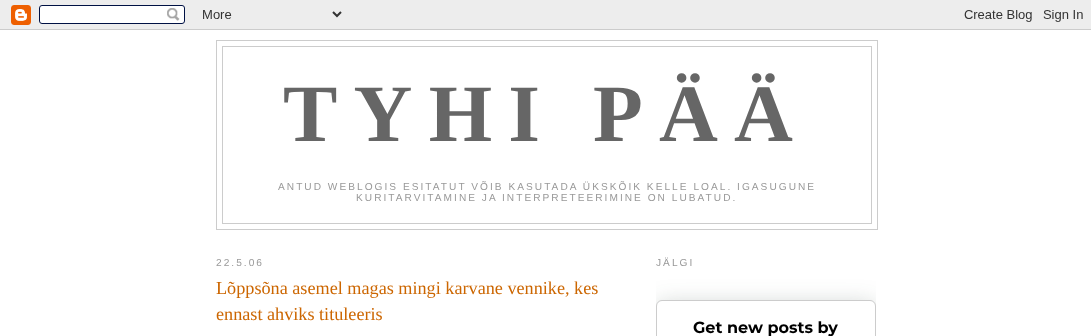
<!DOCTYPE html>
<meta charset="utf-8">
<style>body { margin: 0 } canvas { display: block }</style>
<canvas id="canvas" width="1091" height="336"></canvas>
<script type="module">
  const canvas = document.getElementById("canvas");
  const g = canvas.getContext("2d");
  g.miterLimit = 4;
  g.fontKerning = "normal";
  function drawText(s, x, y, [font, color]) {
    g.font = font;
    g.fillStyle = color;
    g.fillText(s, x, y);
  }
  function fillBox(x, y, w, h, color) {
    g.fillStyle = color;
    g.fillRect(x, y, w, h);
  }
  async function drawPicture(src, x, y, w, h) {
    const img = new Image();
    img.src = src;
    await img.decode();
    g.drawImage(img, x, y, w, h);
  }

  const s1 = ["bold 81.5px Liberation Serif", "#666666"];
  const s2 = ["10.15px Liberation Sans", "#999999"];
  const s3 = ["18.2px Liberation Serif", "#CC6600"];
  const s4 = ["100 16px Montserrat", "#000000"];

  fillBox(0, 0, 1091, 336, "#FFFFFF");
  await drawPicture("pic1.png", 0, 0, 1091, 30);
  g.strokeStyle = "#CCCCCC";
  g.strokeRect(216.5, 40.5, 661, 189);
  g.strokeRect(222.5, 46.5, 649, 177);
  g.letterSpacing = "16.25px";
  drawText("TYHI PÄÄ", 283, 141, s1);
  g.letterSpacing = "2.03px";
  drawText("ANTUD WEBLOGIS ESITATUT VÕIB KASUTADA ÜKSKÕIK KELLE LOAL. IGASUGUNE", 278, 190, s2);
  drawText("KURITARVITAMINE JA INTERPRETEERIMINE ON LUBATUD.", 356, 201, s2);
  drawText("22.5.06", 216, 266, s2);
  g.letterSpacing = "0px";
  drawText("Lõppsõna asemel magas mingi karvane vennike, kes", 216, 294, s3);
  drawText("ennast ahviks tituleeris", 216, 320, s3);
  g.letterSpacing = "2.03px";
  drawText("JÄLGI", 656, 266, s2);
  g.save();
  g.beginPath();
  g.rect(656, 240, 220, 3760);
  g.clip();
  g.fillStyle = "rgba(34, 60, 47, 0.25)";
  g.filter = "blur(12.5px)";
  g.beginPath();
  g.roundRect(656, 305, 220, 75, 6);
  g.fill();
  g.filter = "none";
  g.restore();
  g.fillStyle = "#FFFFFF";
  g.beginPath();
  g.roundRect(656.5, 300.5, 219, 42, 5.5);
  g.fill();
  g.stroke();
  g.letterSpacing = "0px";
  drawText("Get new posts by", 693, 333, s4);
</script>
